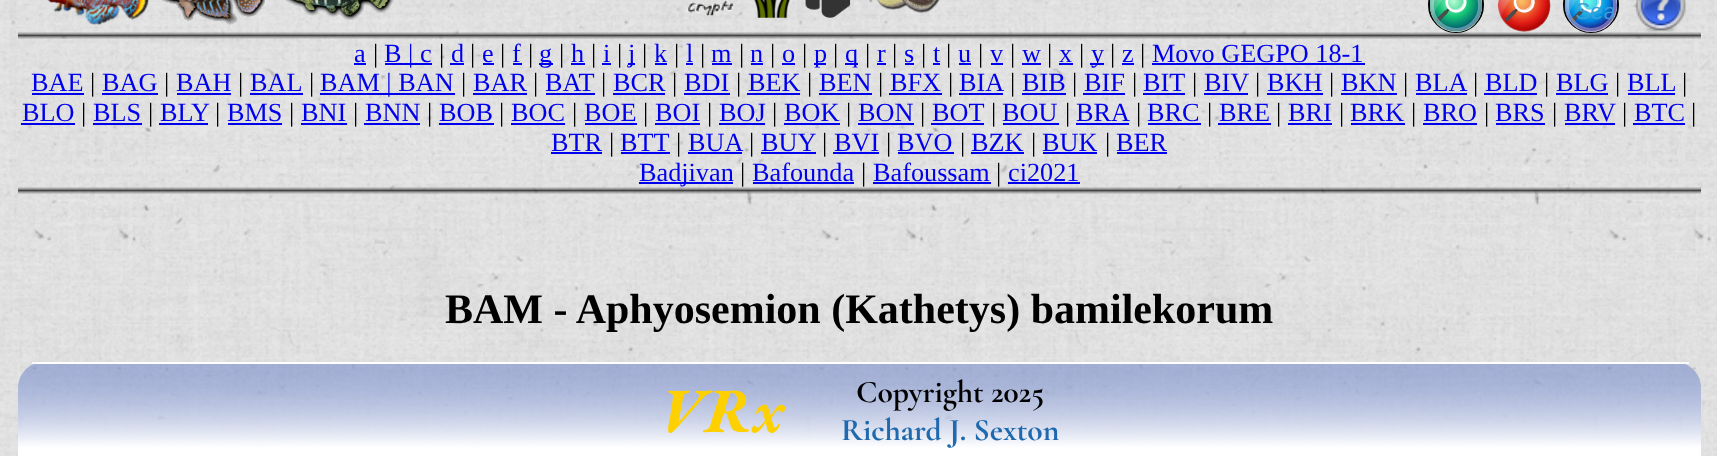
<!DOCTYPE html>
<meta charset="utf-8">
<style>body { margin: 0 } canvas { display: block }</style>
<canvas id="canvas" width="1717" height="456"></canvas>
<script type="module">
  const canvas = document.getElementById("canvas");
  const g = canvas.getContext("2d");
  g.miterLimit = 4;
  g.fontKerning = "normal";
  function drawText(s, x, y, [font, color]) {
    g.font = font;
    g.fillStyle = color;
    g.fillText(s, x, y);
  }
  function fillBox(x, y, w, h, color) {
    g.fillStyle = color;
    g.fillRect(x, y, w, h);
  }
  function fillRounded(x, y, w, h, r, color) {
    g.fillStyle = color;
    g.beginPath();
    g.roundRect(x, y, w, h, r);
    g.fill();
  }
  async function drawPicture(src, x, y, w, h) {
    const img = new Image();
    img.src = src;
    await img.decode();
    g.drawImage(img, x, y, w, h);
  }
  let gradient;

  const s1 = ["23px Liberation Sans", "#3D9ED5"];
  const s2 = ["26.25px Liberation Serif", "#0000EE"];
  const s3 = ["26.25px Liberation Serif", "#000000"];
  const s4 = ["bold 42px Liberation Serif", "#000000"];
  const s5 = ["italic bold 63px EB Garamond", "#FFD000"];
  const s6 = ["bold 31.5px Cormorant Garamond", "#000000"];
  const s7 = ["bold 31.5px Cormorant Garamond", "#1F69AF"];

  fillBox(0, 0, 1717, 456, "#FFFFFF");
  await drawPicture("pic1.png", 0, 0, 1717, 456);
  await drawPicture("pic2.png", 47, 0, 102, 25);
  await drawPicture("pic3.png", 162, 0, 103, 25);
  await drawPicture("pic4.png", 285, 0, 109, 21);
  await drawPicture("pic5.png", 686, 0, 49, 17);
  await drawPicture("pic6.png", 754, 0, 36, 18);
  await drawPicture("pic7.png", 805, 0, 46, 18);
  await drawPicture("pic8.png", 869, 0, 71, 14);
  g.beginPath();
  g.arc(1456, 5, 27, 0, Math.PI * 2);
  g.strokeStyle = "rgba(0, 0, 0, 0.99)";
  g.lineWidth = 2;
  g.stroke();
  fillRounded(1430, -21, 52, 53, 26, "#D0FFD0");
  await drawPicture("pic9.png", 1429, 0, 54, 32);
  g.beginPath();
  g.roundRect(1432, -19, 48, 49, 24);
  g.strokeStyle = "rgba(255, 255, 255, 0.35)";
  g.lineWidth = 4;
  g.stroke();
  await drawPicture("pic10.png", 1498, 0, 53, 32);
  g.beginPath();
  g.arc(1591, 5, 27, 0, Math.PI * 2);
  g.strokeStyle = "rgba(0, 0, 0, 0.99)";
  g.lineWidth = 2;
  g.stroke();
  fillRounded(1565, -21, 52, 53, 26, "#D0D0FF");
  await drawPicture("pic11.png", 1564, 0, 53, 32);
  g.beginPath();
  g.roundRect(1567, -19, 48, 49, 24);
  g.strokeStyle = "rgba(255, 255, 255, 0.35)";
  g.lineWidth = 4;
  g.stroke();
  g.save();
  g.beginPath();
  g.rect(1575, 0, 39, 25);
  g.clip();
  drawText("Sea", 1575, 19, s1);
  g.restore();
  await drawPicture("pic12.png", 1635, 0, 51, 32);
  drawText("a", 354, 62, s2);
  fillBox(354, 63, 12, 2, "#0000EE");
  drawText("|", 373, 62, s3);
  fillBox(385, 63, 47, 2, "#0000EE");
  drawText("B | c", 384, 62, s2);
  drawText("|", 439, 62, s3);
  drawText("d", 451, 62, s2);
  fillBox(450, 63, 14, 2, "#0000EE");
  drawText("|", 470, 62, s3);
  drawText("e", 482, 62, s2);
  fillBox(483, 63, 11, 2, "#0000EE");
  drawText("|", 500, 62, s3);
  drawText("f", 512, 62, s2);
  fillBox(513, 63, 9, 2, "#0000EE");
  drawText("|", 528, 62, s3);
  fillBox(539, 63, 14, 2, "#0000EE");
  drawText("g", 539, 62, s2);
  drawText("|", 559, 62, s3);
  drawText("h", 571, 62, s2);
  fillBox(571, 63, 14, 2, "#0000EE");
  drawText("|", 591, 62, s3);
  drawText("i", 603, 62, s2);
  fillBox(602, 63, 9, 2, "#0000EE");
  drawText("|", 617, 62, s3);
  fillBox(628, 63, 7, 2, "#0000EE");
  drawText("j", 628, 62, s2);
  drawText("|", 642, 62, s3);
  drawText("k", 654, 62, s2);
  fillBox(655, 63, 12, 2, "#0000EE");
  drawText("|", 674, 62, s3);
  drawText("l", 686, 62, s2);
  fillBox(686, 63, 7, 2, "#0000EE");
  drawText("|", 700, 62, s3);
  drawText("m", 711, 62, s2);
  fillBox(712, 63, 20, 2, "#0000EE");
  drawText("|", 739, 62, s3);
  drawText("n", 750, 62, s2);
  fillBox(751, 63, 12, 2, "#0000EE");
  drawText("|", 770, 62, s3);
  drawText("o", 782, 62, s2);
  fillBox(782, 63, 13, 2, "#0000EE");
  drawText("|", 802, 62, s3);
  fillBox(814, 63, 12, 2, "#0000EE");
  drawText("p", 814, 62, s2);
  drawText("|", 833, 62, s3);
  fillBox(845, 63, 13, 2, "#0000EE");
  drawText("q", 845, 62, s2);
  drawText("|", 865, 62, s3);
  drawText("r", 877, 62, s2);
  fillBox(877, 63, 9, 2, "#0000EE");
  drawText("|", 892, 62, s3);
  drawText("s", 904, 62, s2);
  fillBox(905, 63, 9, 2, "#0000EE");
  drawText("|", 921, 62, s3);
  drawText("t", 933, 62, s2);
  fillBox(933, 63, 7, 2, "#0000EE");
  drawText("|", 946, 62, s3);
  drawText("u", 958, 62, s2);
  fillBox(959, 63, 12, 2, "#0000EE");
  drawText("|", 978, 62, s3);
  drawText("v", 990, 62, s2);
  fillBox(991, 63, 12, 2, "#0000EE");
  drawText("|", 1010, 62, s3);
  drawText("w", 1022, 62, s2);
  fillBox(1022, 63, 19, 2, "#0000EE");
  drawText("|", 1047, 62, s3);
  drawText("x", 1059, 62, s2);
  fillBox(1059, 63, 14, 2, "#0000EE");
  drawText("|", 1079, 62, s3);
  fillBox(1090, 63, 14, 2, "#0000EE");
  drawText("y", 1091, 62, s2);
  drawText("|", 1110, 62, s3);
  drawText("z", 1122, 62, s2);
  fillBox(1122, 63, 12, 2, "#0000EE");
  drawText("|", 1140, 62, s3);
  drawText("Movo GEGPO 18-1", 1152, 62, s2);
  fillBox(1152, 63, 213, 2, "#0000EE");
  drawText("BAE", 31, 91, s2);
  fillBox(32, 93, 52, 2, "#0000EE");
  drawText("|", 90, 91, s3);
  drawText("BAG", 102, 91, s2);
  fillBox(102, 93, 56, 2, "#0000EE");
  drawText("|", 164, 91, s3);
  drawText("BAH", 176, 91, s2);
  fillBox(177, 93, 54, 2, "#0000EE");
  drawText("|", 238, 91, s3);
  drawText("BAL", 250, 91, s2);
  fillBox(250, 93, 53, 2, "#0000EE");
  drawText("|", 309, 91, s3);
  fillBox(320, 93, 135, 2, "#0000EE");
  drawText("BAM | BAN", 320, 91, s2);
  drawText("|", 461, 91, s3);
  drawText("BAR", 473, 91, s2);
  fillBox(473, 93, 54, 2, "#0000EE");
  drawText("|", 533, 91, s3);
  drawText("BAT", 545, 91, s2);
  fillBox(546, 93, 49, 2, "#0000EE");
  drawText("|", 601, 91, s3);
  drawText("BCR", 613, 91, s2);
  fillBox(613, 93, 52, 2, "#0000EE");
  drawText("|", 672, 91, s3);
  drawText("BDI", 684, 91, s2);
  fillBox(684, 93, 46, 2, "#0000EE");
  drawText("|", 736, 91, s3);
  drawText("BEK", 748, 91, s2);
  fillBox(747, 93, 53, 2, "#0000EE");
  drawText("|", 807, 91, s3);
  drawText("BEN", 819, 91, s2);
  fillBox(819, 93, 53, 2, "#0000EE");
  drawText("|", 878, 91, s3);
  drawText("BFX", 890, 91, s2);
  fillBox(889, 93, 53, 2, "#0000EE");
  drawText("|", 948, 91, s3);
  drawText("BIA", 959, 91, s2);
  fillBox(959, 93, 44, 2, "#0000EE");
  drawText("|", 1010, 91, s3);
  drawText("BIB", 1022, 91, s2);
  fillBox(1022, 93, 44, 2, "#0000EE");
  drawText("|", 1072, 91, s3);
  drawText("BIF", 1084, 91, s2);
  fillBox(1083, 93, 42, 2, "#0000EE");
  drawText("|", 1132, 91, s3);
  drawText("BIT", 1143, 91, s2);
  fillBox(1143, 93, 42, 2, "#0000EE");
  drawText("|", 1192, 91, s3);
  drawText("BIV", 1204, 91, s2);
  fillBox(1204, 93, 44, 2, "#0000EE");
  drawText("|", 1255, 91, s3);
  drawText("BKH", 1267, 91, s2);
  fillBox(1267, 93, 56, 2, "#0000EE");
  drawText("|", 1329, 91, s3);
  drawText("BKN", 1341, 91, s2);
  fillBox(1341, 93, 56, 2, "#0000EE");
  drawText("|", 1403, 91, s3);
  drawText("BLA", 1415, 91, s2);
  fillBox(1416, 93, 51, 2, "#0000EE");
  drawText("|", 1473, 91, s3);
  drawText("BLD", 1485, 91, s2);
  fillBox(1484, 93, 53, 2, "#0000EE");
  drawText("|", 1544, 91, s3);
  drawText("BLG", 1556, 91, s2);
  fillBox(1556, 93, 52, 2, "#0000EE");
  drawText("|", 1615, 91, s3);
  drawText("BLL", 1627, 91, s2);
  fillBox(1628, 93, 47, 2, "#0000EE");
  drawText("|", 1682, 91, s3);
  drawText("BLO", 22, 121, s2);
  fillBox(21, 123, 54, 2, "#0000EE");
  drawText("|", 81, 121, s3);
  drawText("BLS", 93, 121, s2);
  fillBox(93, 123, 49, 2, "#0000EE");
  drawText("|", 148, 121, s3);
  drawText("BLY", 160, 121, s2);
  fillBox(159, 123, 49, 2, "#0000EE");
  drawText("|", 215, 121, s3);
  drawText("BMS", 227, 121, s2);
  fillBox(228, 123, 54, 2, "#0000EE");
  drawText("|", 289, 121, s3);
  drawText("BNI", 301, 121, s2);
  fillBox(301, 123, 46, 2, "#0000EE");
  drawText("|", 353, 121, s3);
  drawText("BNN", 365, 121, s2);
  fillBox(364, 123, 56, 2, "#0000EE");
  drawText("|", 427, 121, s3);
  drawText("BOB", 439, 121, s2);
  fillBox(439, 123, 55, 2, "#0000EE");
  drawText("|", 499, 121, s3);
  drawText("BOC", 511, 121, s2);
  fillBox(511, 123, 54, 2, "#0000EE");
  drawText("|", 572, 121, s3);
  drawText("BOE", 584, 121, s2);
  fillBox(585, 123, 52, 2, "#0000EE");
  drawText("|", 643, 121, s3);
  drawText("BOI", 655, 121, s2);
  fillBox(655, 123, 45, 2, "#0000EE");
  drawText("|", 707, 121, s3);
  drawText("BOJ", 719, 121, s2);
  fillBox(719, 123, 46, 2, "#0000EE");
  drawText("|", 772, 121, s3);
  drawText("BOK", 784, 121, s2);
  fillBox(784, 123, 56, 2, "#0000EE");
  drawText("|", 846, 121, s3);
  drawText("BON", 858, 121, s2);
  fillBox(858, 123, 56, 2, "#0000EE");
  drawText("|", 920, 121, s3);
  drawText("BOT", 932, 121, s2);
  fillBox(931, 123, 53, 2, "#0000EE");
  drawText("|", 991, 121, s3);
  drawText("BOU", 1002, 121, s2);
  fillBox(1003, 123, 56, 2, "#0000EE");
  drawText("|", 1065, 121, s3);
  drawText("BRA", 1076, 121, s2);
  fillBox(1076, 123, 53, 2, "#0000EE");
  drawText("|", 1136, 121, s3);
  drawText("BRC", 1147, 121, s2);
  fillBox(1148, 123, 53, 2, "#0000EE");
  drawText("|", 1207, 121, s3);
  drawText("BRE", 1219, 121, s2);
  fillBox(1218, 123, 53, 2, "#0000EE");
  drawText("|", 1276, 121, s3);
  drawText("BRI", 1288, 121, s2);
  fillBox(1288, 123, 44, 2, "#0000EE");
  drawText("|", 1339, 121, s3);
  drawText("BRK", 1350, 121, s2);
  fillBox(1351, 123, 54, 2, "#0000EE");
  drawText("|", 1411, 121, s3);
  drawText("BRO", 1423, 121, s2);
  fillBox(1423, 123, 54, 2, "#0000EE");
  drawText("|", 1484, 121, s3);
  drawText("BRS", 1495, 121, s2);
  fillBox(1496, 123, 49, 2, "#0000EE");
  drawText("|", 1552, 121, s3);
  drawText("BRV", 1564, 121, s2);
  fillBox(1565, 123, 50, 2, "#0000EE");
  drawText("|", 1622, 121, s3);
  drawText("BTC", 1634, 121, s2);
  fillBox(1633, 123, 52, 2, "#0000EE");
  drawText("|", 1691, 121, s3);
  drawText("BTR", 551, 151, s2);
  fillBox(551, 152, 51, 2, "#0000EE");
  drawText("|", 609, 151, s3);
  drawText("BTT", 620, 151, s2);
  fillBox(621, 152, 49, 2, "#0000EE");
  drawText("|", 676, 151, s3);
  drawText("BUA", 688, 151, s2);
  fillBox(688, 152, 54, 2, "#0000EE");
  drawText("|", 749, 151, s3);
  drawText("BUY", 761, 151, s2);
  fillBox(761, 152, 55, 2, "#0000EE");
  drawText("|", 822, 151, s3);
  drawText("BVI", 834, 151, s2);
  fillBox(833, 152, 46, 2, "#0000EE");
  drawText("|", 886, 151, s3);
  drawText("BVO", 897, 151, s2);
  fillBox(898, 152, 56, 2, "#0000EE");
  drawText("|", 960, 151, s3);
  drawText("BZK", 971, 151, s2);
  fillBox(971, 152, 53, 2, "#0000EE");
  drawText("|", 1031, 151, s3);
  drawText("BUK", 1042, 151, s2);
  fillBox(1043, 152, 54, 2, "#0000EE");
  drawText("|", 1105, 151, s3);
  drawText("BER", 1116, 151, s2);
  fillBox(1117, 152, 50, 2, "#0000EE");
  fillBox(639, 182, 94, 2, "#0000EE");
  drawText("Badjivan", 639, 181, s2);
  drawText("|", 740, 181, s3);
  drawText("Bafounda", 752, 181, s2);
  fillBox(753, 182, 101, 2, "#0000EE");
  drawText("|", 861, 181, s3);
  drawText("Bafoussam", 873, 181, s2);
  fillBox(873, 182, 118, 2, "#0000EE");
  drawText("|", 996, 181, s3);
  drawText("ci2021", 1008, 181, s2);
  fillBox(1008, 182, 72, 2, "#0000EE");
  drawText("BAM - Aphyosemion (Kathetys) bamilekorum", 445, 323, s4);
  g.save();
  g.beginPath();
  g.moveTo(44, 362);
  g.lineTo(1675, 362);
  g.bezierCurveTo(1689.5, 362, 1701, 373.5, 1701, 388);
  g.lineTo(1701, 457);
  g.lineTo(18, 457);
  g.lineTo(18, 388);
  g.bezierCurveTo(18, 373.5, 29.5, 362, 44, 362);
  g.closePath();
  g.clip();
  gradient = g.createLinearGradient(859, 364, 859, 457);
  gradient.addColorStop(0.05, "rgba(101, 126, 199, 0.5)");
  gradient.addColorStop(0.9, "#FFFFFF");
  gradient.addColorStop(1, "#FFFFFF");
  g.fillStyle = gradient;
  g.fillRect(18, 364, 1683, 92);
  g.restore();
  fillBox(32, 362, 1657, 2, "rgba(255, 255, 255, 0.8)");
  drawText("VRx", 659, 432, s5);
  drawText("Copyright 2025", 856, 402, s6);
  drawText("Richard J. Sexton", 841, 440, s7);
</script>
